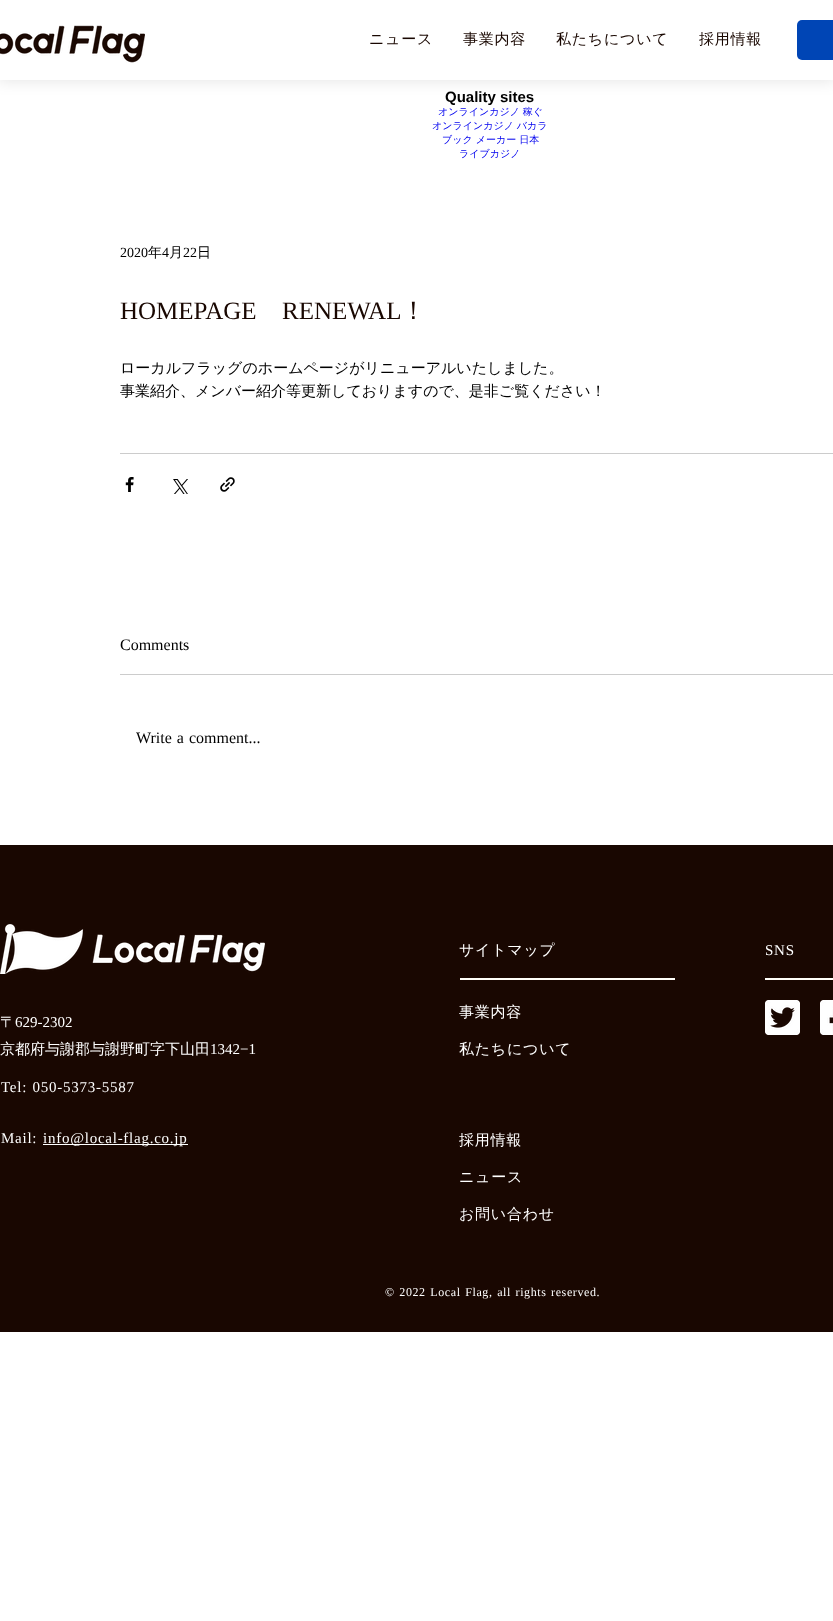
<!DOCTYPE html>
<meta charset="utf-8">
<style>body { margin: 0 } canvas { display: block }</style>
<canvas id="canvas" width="833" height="1621"></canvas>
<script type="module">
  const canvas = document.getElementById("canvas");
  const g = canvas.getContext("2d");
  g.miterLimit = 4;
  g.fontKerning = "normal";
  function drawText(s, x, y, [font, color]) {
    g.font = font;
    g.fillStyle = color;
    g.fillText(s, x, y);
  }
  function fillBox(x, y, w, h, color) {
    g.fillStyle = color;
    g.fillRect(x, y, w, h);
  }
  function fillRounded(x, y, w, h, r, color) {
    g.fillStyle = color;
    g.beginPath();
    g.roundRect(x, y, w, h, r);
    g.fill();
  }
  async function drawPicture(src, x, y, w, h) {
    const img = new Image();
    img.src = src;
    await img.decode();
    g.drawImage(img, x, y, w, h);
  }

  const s1 = ["500 15px WenQuanYi Zen Hei", "#190701"];
  const s2 = ["bold 15px Liberation Sans", "#000000"];
  const s3 = ["500 10px WenQuanYi Zen Hei", "#0000EE"];
  const s4 = ["14px Liberation Serif", "#000000"];
  const s5 = ["500 14px WenQuanYi Zen Hei", "#000000"];
  const s6 = ["25px Liberation Serif", "#190701"];
  const s7 = ["500 25px WenQuanYi Zen Hei", "#190701"];
  const s8 = ["500 15px WenQuanYi Zen Hei", "#000000"];
  const s9 = ["16px Liberation Serif", "#000000"];
  const s10 = ["500 15px WenQuanYi Zen Hei", "#FFFFFF"];
  const s11 = ["15px Liberation Serif", "#FFFFFF"];
  const s12 = ["12px Liberation Serif", "#FFFFFF"];

  fillBox(0, 0, 833, 1621, "#FFFFFF");
  g.fillStyle = "rgba(0, 0, 0, 0.1)";
  g.filter = "blur(7.5px)";
  g.beginPath();
  g.rect(-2, -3, 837, 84);
  g.fill();
  g.filter = "none";
  fillBox(0, 0, 833, 80, "#FFFFFF");
  await drawPicture("pic1.png", 0, 25, 145, 38);
  g.letterSpacing = "0.75px";
  drawText("ニュース", 369, 44, s1);
  drawText("事業内容", 463, 44, s1);
  drawText("私たちについて", 556, 44, s1);
  drawText("採用情報", 699, 44, s1);
  fillRounded(797, 20, 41, 40, 5, "#0045B5");
  g.letterSpacing = "0px";
  drawText("Quality sites", 445, 102, s2);
  drawText("オンラインカジノ 稼ぐ", 438, 115, s3);
  drawText("オンラインカジノ バカラ", 432, 129, s3);
  drawText("ブック メーカー 日本", 442, 143, s3);
  drawText("ライブカジノ", 459, 157, s3);
  drawText("2020", 120, 257, s4);
  drawText("年", 148, 257, s5);
  drawText("4", 162, 257, s4);
  drawText("月", 169, 257, s5);
  drawText("22", 183, 257, s4);
  drawText("日", 197, 257, s5);
  drawText("HOMEPAGE", 120, 319, s6);
  drawText("RENEWAL", 282, 319, s6);
  drawText("！", 401, 319, s7);
  drawText("ローカルフラッグのホームページがリニューアルいたしました。", 120, 373, s8);
  drawText("事業紹介、メンバー紹介等更新しておりますので、是非ご覧ください！", 120, 396, s8);
  fillBox(120, 453, 713, 1, "#CCCCCC");
  await drawPicture("pic2.png", 125, 477, 9, 15);
  await drawPicture("pic3.png", 173, 479, 15, 15);
  await drawPicture("pic4.png", 220, 477, 15, 15);
  drawText("Comments", 120, 650, s9);
  fillBox(120, 674, 713, 1, "#CCCCCC");
  g.wordSpacing = "1px";
  drawText("Write a comment...", 136, 743, s9);
  fillBox(0, 845, 833, 487, "#190701");
  await drawPicture("pic5.png", 0, 924, 265, 50);
  g.letterSpacing = "0.75px";
  g.wordSpacing = "0px";
  drawText("サイトマップ", 459, 955, s10);
  drawText("SNS", 765, 955, s11);
  fillBox(460, 978, 215, 2, "#FFFFFA");
  fillBox(765, 978, 68, 2, "#FFFFFA");
  drawText("事業内容", 459, 1017, s10);
  await drawPicture("pic6.png", 765, 1000, 35, 35);
  await drawPicture("pic7.png", 820, 1000, 13, 35);
  g.letterSpacing = "0px";
  drawText("〒", 0, 1027, s10);
  drawText("629-2302", 15, 1027, s11);
  drawText("京都府与謝郡与謝野町字下山田", 0, 1054, s10);
  drawText("1342−1", 210, 1054, s11);
  g.letterSpacing = "0.75px";
  drawText("私たちについて", 459, 1054, s10);
  g.wordSpacing = "1px";
  drawText("Tel: 050-5373-5587", 1, 1092, s11);
  g.wordSpacing = "0px";
  drawText("Mail:", 1, 1143, s11);
  fillBox(43, 1144, 145, 1, "#FFFFFF");
  drawText("info@local-flag.co.jp", 43, 1143, s11);
  drawText("採用情報", 459, 1145, s10);
  drawText("ニュース", 459, 1182, s10);
  drawText("お問い合わせ", 459, 1219, s10);
  g.letterSpacing = "0.6px";
  g.wordSpacing = "1px";
  drawText("© 2022 Local Flag, all rights reserved.", 385, 1296, s12);
</script>
